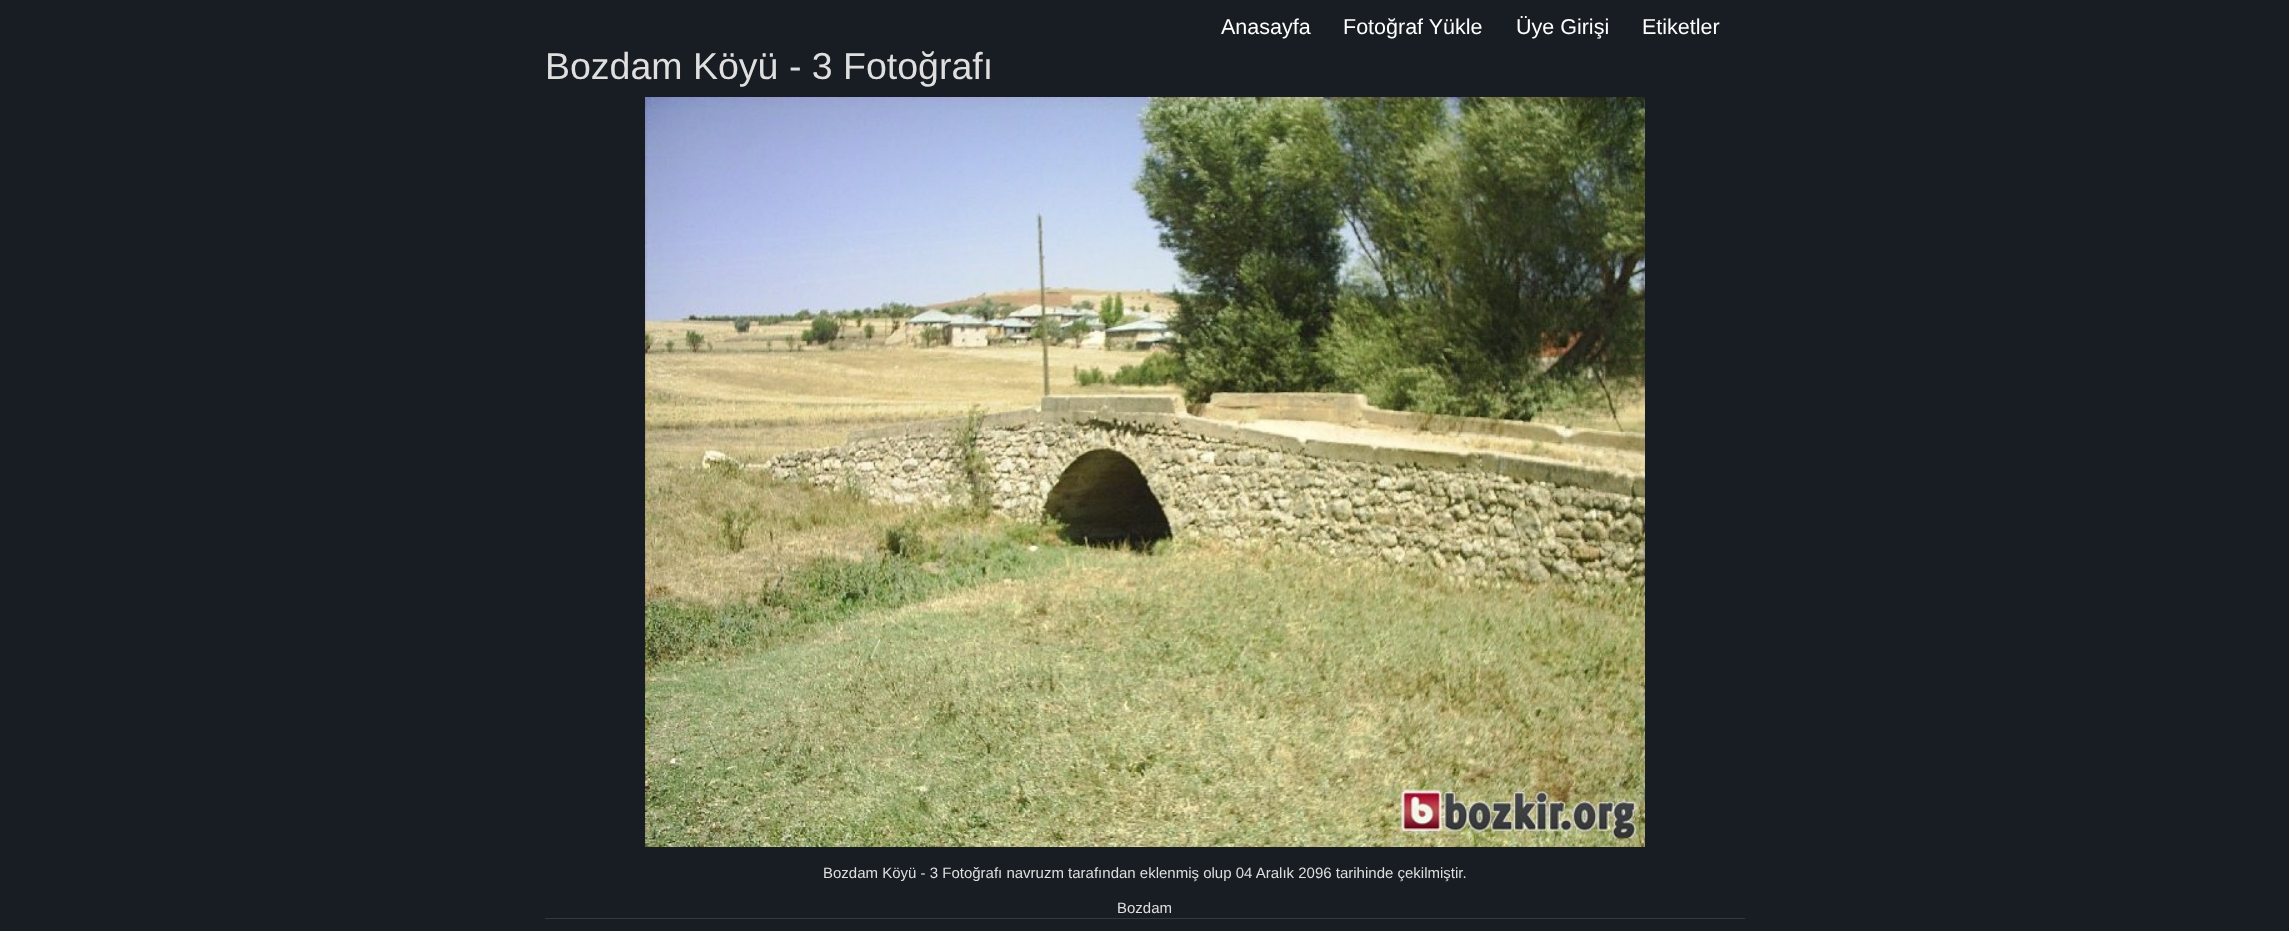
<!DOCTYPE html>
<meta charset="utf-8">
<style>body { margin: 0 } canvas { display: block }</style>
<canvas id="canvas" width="2289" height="931"></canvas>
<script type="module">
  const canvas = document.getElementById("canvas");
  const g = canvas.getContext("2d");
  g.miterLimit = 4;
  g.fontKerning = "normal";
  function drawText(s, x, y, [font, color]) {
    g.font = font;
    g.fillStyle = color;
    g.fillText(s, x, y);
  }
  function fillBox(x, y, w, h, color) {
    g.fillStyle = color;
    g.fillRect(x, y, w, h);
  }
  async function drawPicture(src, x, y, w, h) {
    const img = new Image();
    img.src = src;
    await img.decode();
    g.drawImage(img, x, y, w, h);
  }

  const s1 = ["21.5px Liberation Sans", "#FFFFFF"];
  const s2 = ["37.5px Liberation Sans", "#DFDFDF"];
  const s3 = ["15px Liberation Sans", "#DFDFDF"];

  fillBox(0, 0, 2289, 931, "#181D23");
  drawText("Anasayfa", 1221, 34, s1);
  drawText("Fotoğraf Yükle", 1343, 34, s1);
  drawText("Üye Girişi", 1516, 34, s1);
  drawText("Etiketler", 1642, 34, s1);
  drawText("Bozdam Köyü - 3 Fotoğrafı", 545, 79, s2);
  await drawPicture("pic1.png", 645, 97, 1000, 750);
  drawText("Bozdam Köyü - 3 Fotoğrafı navruzm tarafından eklenmiş olup 04 Aralık 2096 tarihinde çekilmiştir.", 823, 878, s3);
  drawText("Bozdam", 1117, 913, s3);
  fillBox(545, 918, 1200, 1, "#333A3F");
</script>
